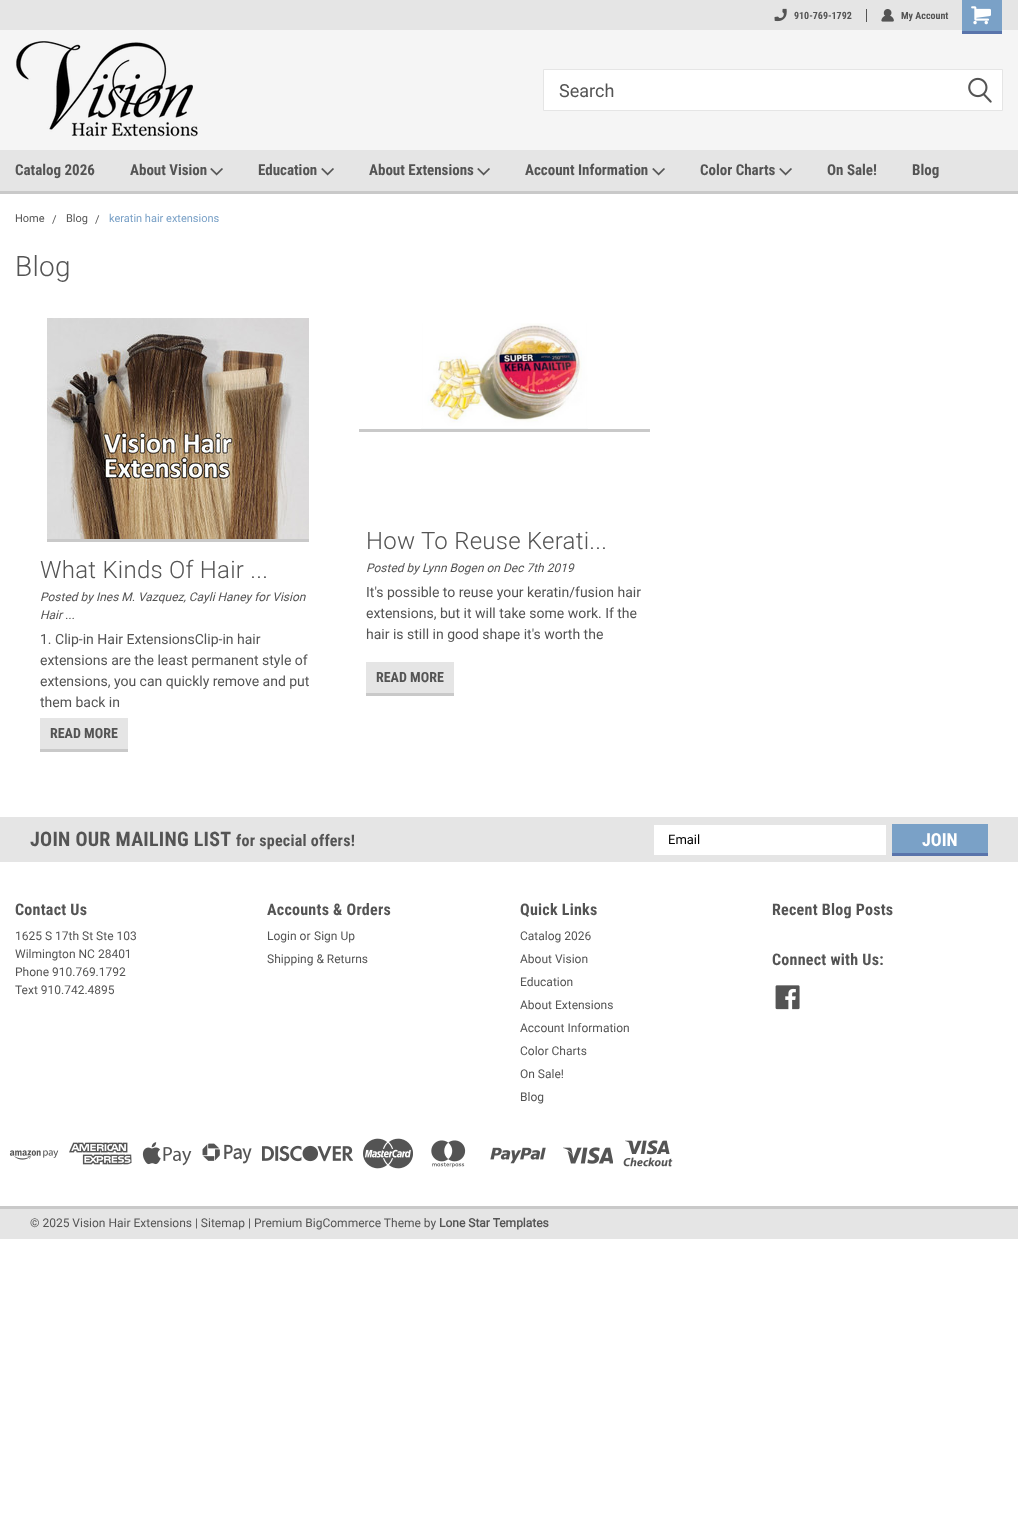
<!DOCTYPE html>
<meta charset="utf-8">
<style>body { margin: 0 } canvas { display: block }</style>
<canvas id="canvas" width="1018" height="1524"></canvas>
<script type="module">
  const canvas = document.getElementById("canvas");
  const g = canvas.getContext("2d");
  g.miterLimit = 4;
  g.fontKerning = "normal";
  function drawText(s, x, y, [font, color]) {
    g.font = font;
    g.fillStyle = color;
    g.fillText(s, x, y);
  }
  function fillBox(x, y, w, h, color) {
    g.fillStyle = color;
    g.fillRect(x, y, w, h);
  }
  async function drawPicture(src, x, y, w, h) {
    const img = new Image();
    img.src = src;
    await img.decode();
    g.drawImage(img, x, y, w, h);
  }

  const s1 = ["bold 10px Roboto Condensed", "#545454"];
  const s2 = ["18px Roboto", "#545454"];
  const s3 = ["bold 15px Roboto Condensed", "#545454"];
  const s4 = ["11px Roboto", "#545454"];
  const s5 = ["11px Roboto", "#7AA1C7"];
  const s6 = ["300 28px Roboto", "#545454"];
  const s7 = ["300 24px Roboto", "#545454"];
  const s8 = ["italic 12px Roboto", "#545454"];
  const s9 = ["14px Roboto", "#545454"];
  const s10 = ["bold 14px Roboto Condensed", "#545454"];
  const s11 = ["bold 20px Roboto Condensed", "#545454"];
  const s12 = ["bold 16px Roboto Condensed", "#545454"];
  const s13 = ["13px Roboto", "#000000"];
  const s14 = ["bold 18px Roboto Condensed", "#FFFFFF"];
  const s15 = ["12px Roboto", "#545454"];
  const s16 = ["bold 12px Roboto", "#545454"];

  fillBox(0, 0, 1018, 1524, "#FFFFFF");
  fillBox(0, 30, 1018, 120, "#F5F5F5");
  fillBox(0, 0, 1018, 30, "#E5E5E5");
  fillBox(866, 9, 1, 13, "#545454");
  await drawPicture("pic1.png", 774, 8, 13, 14);
  drawText("910-769-1792", 794, 19, s1);
  await drawPicture("pic2.png", 881, 9, 13, 13);
  drawText("My Account", 901, 19, s1);
  fillBox(962, 0, 40, 31, "#7AA1C7");
  fillBox(962, 31, 40, 3, "#5974AB");
  await drawPicture("pic3.png", 971, 6, 20, 19);
  await drawPicture("pic4.png", 16, 41, 182, 96);
  g.fillStyle = "#FFFFFF";
  g.beginPath();
  g.rect(543.5, 69.5, 459, 41);
  g.fill();
  g.strokeStyle = "#E5E5E5";
  g.stroke();
  drawText("Search", 559, 97, s2);
  await drawPicture("pic5.png", 968, 77, 24, 26);
  fillBox(0, 150, 1018, 41, "#E5E5E5");
  fillBox(0, 191, 1018, 3, "#C9C9C9");
  drawText("Catalog 2026", 15, 175, s3);
  drawText("About Vision", 130, 175, s3);
  await drawPicture("pic6.png", 210, 168, 13, 8);
  drawText("Education", 258, 175, s3);
  await drawPicture("pic6.png", 321, 168, 13, 8);
  drawText("About Extensions", 369, 175, s3);
  await drawPicture("pic6.png", 477, 168, 13, 8);
  drawText("Account Information", 525, 175, s3);
  await drawPicture("pic6.png", 652, 168, 13, 8);
  drawText("Color Charts", 700, 175, s3);
  await drawPicture("pic6.png", 779, 168, 13, 8);
  drawText("On Sale!", 827, 175, s3);
  drawText("Blog", 912, 175, s3);
  drawText("Home", 15, 222, s4);
  drawText("/", 52, 223, s4);
  drawText("Blog", 66, 222, s4);
  drawText("/", 95, 223, s4);
  drawText("keratin hair extensions", 109, 222, s5);
  g.letterSpacing = "0.25px";
  drawText("Blog", 15, 276, s6);
  fillBox(47, 539, 262, 3, "#C9C9C9");
  await drawPicture("pic7.png", 47, 318, 262, 221);
  drawText("What Kinds Of Hair ...", 40, 578, s7);
  g.letterSpacing = "0px";
  drawText("Posted by Ines M. Vazquez, Cayli Haney for Vision", 40, 601, s8);
  drawText("Hair ...", 40, 619, s8);
  drawText("1. Clip-in Hair ExtensionsClip-in hair", 40, 644, s9);
  drawText("extensions are the least permanent style of", 40, 665, s9);
  drawText("extensions, you can quickly remove and put", 40, 686, s9);
  drawText("them back in", 40, 707, s9);
  fillBox(40, 718, 88, 31, "#E5E5E5");
  fillBox(40, 749, 88, 3, "#C9C9C9");
  drawText("READ MORE", 50, 738, s10);
  fillBox(359, 429, 291, 3, "#C9C9C9");
  await drawPicture("pic8.png", 421, 323, 167, 106);
  g.letterSpacing = "0.25px";
  drawText("How To Reuse Kerati...", 366, 549, s7);
  g.letterSpacing = "0px";
  drawText("Posted by Lynn Bogen on Dec 7th 2019", 366, 572, s8);
  drawText("It's possible to reuse your keratin/fusion hair", 366, 597, s9);
  drawText("extensions, but it will take some work. If the", 366, 618, s9);
  drawText("hair is still in good shape it's worth the", 366, 639, s9);
  fillBox(366, 662, 88, 31, "#E5E5E5");
  fillBox(366, 693, 88, 3, "#C9C9C9");
  drawText("READ MORE", 376, 682, s10);
  fillBox(0, 817, 1018, 45, "#E5E5E5");
  g.letterSpacing = "0.25px";
  drawText("JOIN OUR MAILING LIST", 30, 846, s11);
  drawText("for special offers!", 236, 846, s12);
  fillBox(654, 825, 232, 30, "#FFFFFF");
  g.letterSpacing = "0px";
  drawText("Email", 668, 844, s13);
  fillBox(892, 824, 96, 29, "#7AA1C7");
  fillBox(892, 853, 96, 3, "#5974AB");
  drawText("JOIN", 922, 846, s14);
  g.letterSpacing = "0.25px";
  drawText("Contact Us", 15, 915, s12);
  g.letterSpacing = "0px";
  drawText("1625 S 17th St Ste 103", 15, 940, s15);
  drawText("Wilmington NC 28401", 15, 958, s15);
  drawText("Phone 910.769.1792", 15, 976, s15);
  drawText("Text 910.742.4895", 15, 994, s15);
  g.letterSpacing = "0.25px";
  drawText("Accounts & Orders", 267, 915, s12);
  g.letterSpacing = "0px";
  drawText("Login or", 267, 940, s15);
  drawText("Sign Up", 314, 940, s15);
  drawText("Shipping & Returns", 267, 963, s15);
  g.letterSpacing = "0.25px";
  drawText("Quick Links", 520, 915, s12);
  g.letterSpacing = "0px";
  drawText("Catalog 2026", 520, 940, s15);
  drawText("About Vision", 520, 963, s15);
  drawText("Education", 520, 986, s15);
  drawText("About Extensions", 520, 1009, s15);
  drawText("Account Information", 520, 1032, s15);
  drawText("Color Charts", 520, 1055, s15);
  drawText("On Sale!", 520, 1078, s15);
  drawText("Blog", 520, 1101, s15);
  g.letterSpacing = "0.25px";
  drawText("Recent Blog Posts", 772, 915, s12);
  drawText("Connect with Us:", 772, 965, s12);
  await drawPicture("pic9.png", 775, 985, 25, 25);
  await drawPicture("pic10.png", 9, 1150, 50, 10);
  await drawPicture("pic11.png", 69, 1142, 63, 23);
  await drawPicture("pic12.png", 142, 1142, 50, 24);
  await drawPicture("pic13.png", 202, 1143, 50, 21);
  await drawPicture("pic14.png", 262, 1145, 91, 17);
  await drawPicture("pic15.png", 363, 1138, 50, 31);
  await drawPicture("pic16.png", 431, 1140, 35, 28);
  await drawPicture("pic17.png", 490, 1147, 56, 17);
  await drawPicture("pic18.png", 563, 1147, 50, 17);
  await drawPicture("pic19.png", 623, 1140, 50, 27);
  fillBox(0, 1209, 1018, 30, "#E5E5E5");
  fillBox(0, 1206, 1018, 3, "#C9C9C9");
  g.letterSpacing = "0px";
  drawText("© 2025 Vision Hair Extensions | Sitemap | Premium BigCommerce Theme by", 30, 1227, s15);
  drawText("Lone Star Templates", 439, 1227, s16);
</script>
